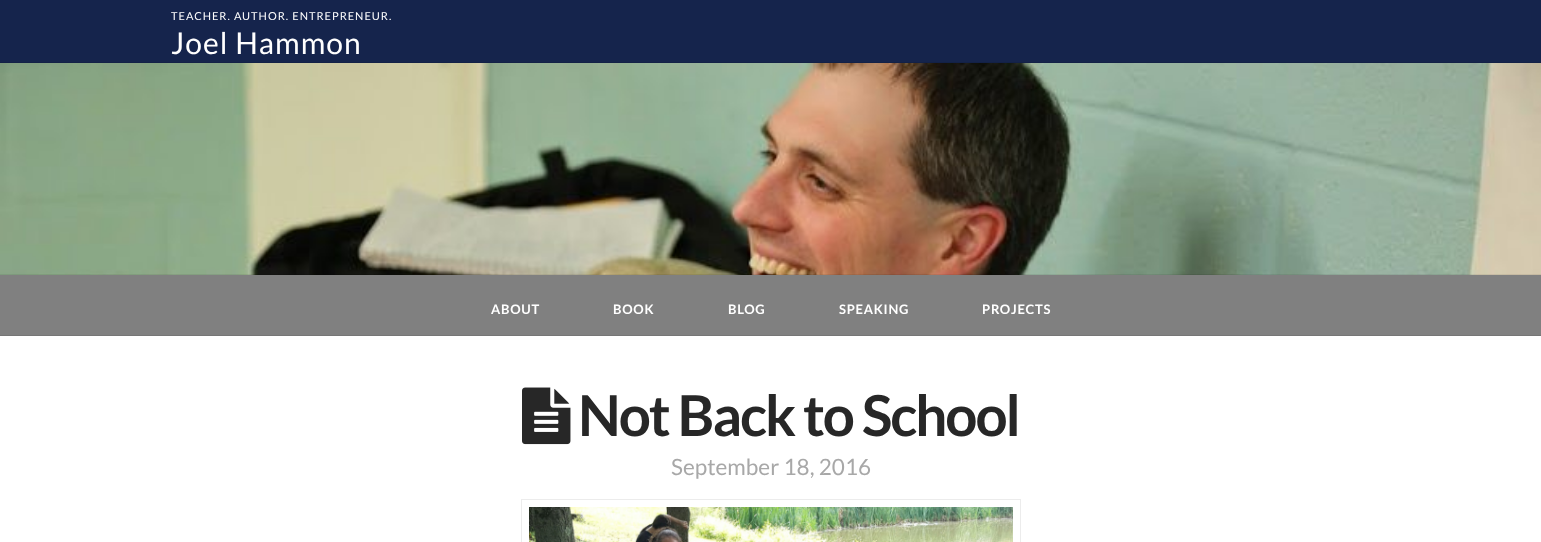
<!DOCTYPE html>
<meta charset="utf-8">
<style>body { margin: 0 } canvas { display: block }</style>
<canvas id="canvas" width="1541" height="542"></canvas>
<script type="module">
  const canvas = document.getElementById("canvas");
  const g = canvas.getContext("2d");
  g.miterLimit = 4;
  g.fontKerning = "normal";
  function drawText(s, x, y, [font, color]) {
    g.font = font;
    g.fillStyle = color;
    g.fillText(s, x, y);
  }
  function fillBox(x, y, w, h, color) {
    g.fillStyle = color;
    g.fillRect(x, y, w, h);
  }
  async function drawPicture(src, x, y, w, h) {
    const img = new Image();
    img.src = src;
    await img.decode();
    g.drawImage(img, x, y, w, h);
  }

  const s1 = ["11px Lato", "#FFFFFF"];
  const s2 = ["30px Lato", "#FFFFFF"];
  const s3 = ["bold 13px Lato", "#FFFFFF"];
  const s4 = ["bold 56.5px Lato", "#272727"];
  const s5 = ["22.5px Lato", "#A8A8A8"];

  fillBox(0, 0, 1541, 542, "#FFFFFF");
  fillBox(0, 0, 1541, 62, "#15244C");
  fillBox(0, 62, 1541, 1, "#132146");
  g.letterSpacing = "1px";
  drawText("TEACHER. AUTHOR. ENTREPRENEUR.", 171, 20, s1);
  drawText("Joel Hammon", 171, 54, s2);
  await drawPicture("pic1.png", 0, 63, 1541, 212);
  fillBox(0, 274, 1541, 1, "rgba(0, 0, 0, 0.07)");
  fillBox(0, 275, 1541, 60, "#808080");
  fillBox(0, 335, 1541, 1, "#767676");
  g.letterSpacing = "0.75px";
  drawText("ABOUT", 491, 314, s3);
  drawText("BOOK", 613, 314, s3);
  drawText("BLOG", 728, 314, s3);
  drawText("SPEAKING", 839, 314, s3);
  drawText("PROJECTS", 982, 314, s3);
  await drawPicture("pic2.png", 522, 387, 49, 58);
  g.letterSpacing = "-2px";
  drawText("Not Back to School", 578, 436, s4);
  g.letterSpacing = "0px";
  drawText("September 18, 2016", 671, 475, s5);
  g.strokeStyle = "#ECECEC";
  g.strokeRect(521.5, 499.5, 499, 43);
  await drawPicture("pic3.png", 529, 507, 484, 35);
</script>
